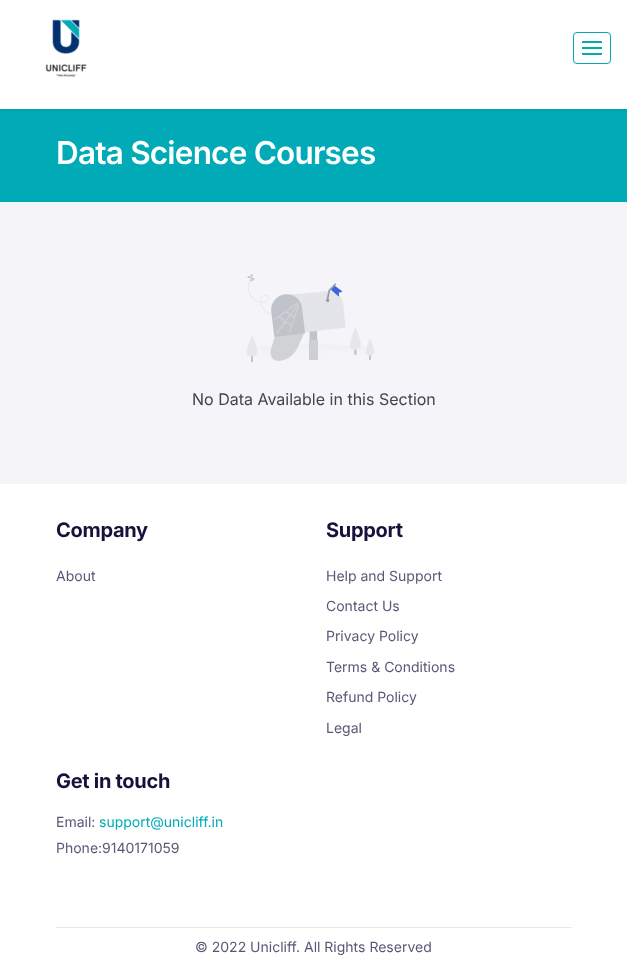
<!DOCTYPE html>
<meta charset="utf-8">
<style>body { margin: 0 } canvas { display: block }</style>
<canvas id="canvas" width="627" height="966"></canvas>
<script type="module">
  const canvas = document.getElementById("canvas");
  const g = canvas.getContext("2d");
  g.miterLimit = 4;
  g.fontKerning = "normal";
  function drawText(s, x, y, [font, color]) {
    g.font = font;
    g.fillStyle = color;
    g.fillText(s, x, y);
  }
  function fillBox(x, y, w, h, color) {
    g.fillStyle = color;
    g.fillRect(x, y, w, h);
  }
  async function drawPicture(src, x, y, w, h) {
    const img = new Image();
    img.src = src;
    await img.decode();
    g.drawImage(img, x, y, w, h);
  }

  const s1 = ["600 31.5px Inter", "#FFFFFF"];
  const s2 = ["16px Inter", "#41454F"];
  const s3 = ["bold 20px Inter", "#18113C"];
  const s4 = ["14px Inter", "#5C5776"];
  const s5 = ["14px Inter", "#00ABB7"];

  fillBox(0, 0, 627, 966, "#F5F4F8");
  fillBox(0, 109, 627, 93, "#00ABB7");
  g.fillStyle = "rgba(3, 0, 71, 0.09)";
  g.filter = "blur(1.5px)";
  g.beginPath();
  g.rect(0, -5, 627, 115);
  g.fill();
  g.filter = "none";
  fillBox(0, 0, 627, 109, "#FFFFFF");
  await drawPicture("pic1.png", 45, 19, 42, 59);
  g.beginPath();
  g.roundRect(573.5, 32.5, 37, 31, 3.5);
  g.strokeStyle = "#00ABB7";
  g.stroke();
  fillBox(582, 41, 20, 2, "#00ABB7");
  fillBox(582, 47, 20, 2, "#00ABB7");
  fillBox(582, 53, 20, 2, "#00ABB7");
  g.letterSpacing = "-0.8px";
  drawText("Data Science Courses", 56, 164, s1);
  await drawPicture("pic2.png", 246, 274, 136, 88);
  g.letterSpacing = "0px";
  drawText("No Data Available in this Section", 192, 405, s2);
  fillBox(0, 484, 627, 482, "#FFFFFF");
  g.letterSpacing = "-0.3px";
  drawText("Company", 56, 537, s3);
  g.letterSpacing = "0px";
  drawText("About", 56, 581, s4);
  g.letterSpacing = "-0.3px";
  drawText("Support", 326, 537, s3);
  g.letterSpacing = "0px";
  drawText("Help and Support", 326, 581, s4);
  drawText("Contact Us", 326, 611, s4);
  drawText("Privacy Policy", 326, 641, s4);
  drawText("Terms & Conditions", 326, 672, s4);
  drawText("Refund Policy", 326, 702, s4);
  drawText("Legal", 326, 733, s4);
  g.letterSpacing = "-0.3px";
  drawText("Get in touch", 56, 788, s3);
  g.letterSpacing = "0px";
  drawText("Email:", 56, 827, s4);
  drawText("support@unicliff.in", 99, 827, s5);
  drawText("Phone:9140171059", 56, 853, s4);
  fillBox(56, 927, 516, 1, "#EAE7F5");
  drawText("© 2022 Unicliff. All Rights Reserved", 195, 952, s4);
</script>
